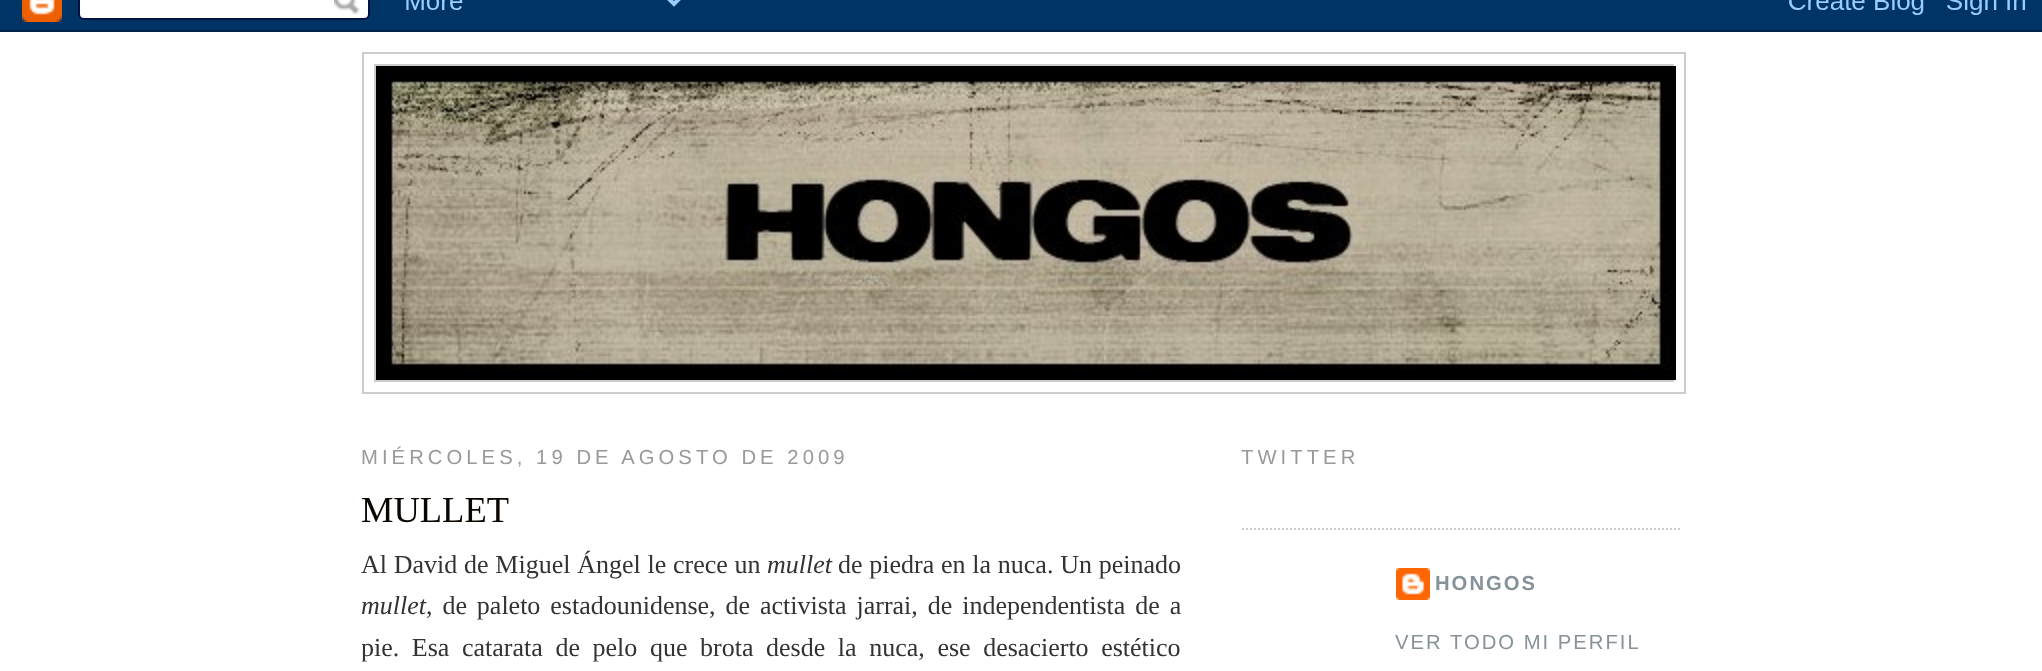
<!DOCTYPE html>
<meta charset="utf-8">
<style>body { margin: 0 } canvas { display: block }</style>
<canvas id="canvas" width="2042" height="671"></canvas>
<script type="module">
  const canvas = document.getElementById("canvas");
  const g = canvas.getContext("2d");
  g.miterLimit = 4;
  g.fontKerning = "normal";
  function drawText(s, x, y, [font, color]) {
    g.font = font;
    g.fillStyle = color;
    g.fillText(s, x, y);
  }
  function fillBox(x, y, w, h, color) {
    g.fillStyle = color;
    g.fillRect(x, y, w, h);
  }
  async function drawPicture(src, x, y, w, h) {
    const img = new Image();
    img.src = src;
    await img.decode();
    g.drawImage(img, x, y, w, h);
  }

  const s1 = ["20.25px Liberation Sans", "#999999"];
  const s2 = ["36.5px Liberation Serif", "#0C0600"];
  const s3 = ["26px Liberation Serif", "#333333"];
  const s4 = ["italic 26px Liberation Serif", "#333333"];
  const s5 = ["bold 20.25px Liberation Sans", "#869299"];
  const s6 = ["20.25px Liberation Sans", "#869299"];

  fillBox(0, 0, 2042, 671, "#FFFFFF");
  await drawPicture("pic1.png", 0, 0, 2042, 32);
  g.strokeStyle = "#CCCCCC";
  g.lineWidth = 2;
  g.strokeRect(363, 53, 1322, 340);
  g.strokeRect(375, 65, 1298, 316);
  await drawPicture("pic2.png", 376, 66, 1300, 314);
  g.letterSpacing = "4.05px";
  drawText("MIÉRCOLES, 19 DE AGOSTO DE 2009", 361, 464, s1);
  g.letterSpacing = "0px";
  drawText("MULLET", 361, 522, s2);
  g.wordSpacing = "0.25px";
  drawText("Al David de Miguel Ángel le crece un", 361, 573, s3);
  g.wordSpacing = "0px";
  drawText("mullet", 767, 573, s4);
  g.wordSpacing = "0.25px";
  drawText("de piedra en la nuca. Un peinado", 838, 573, s3);
  g.wordSpacing = "0px";
  drawText("mullet", 361, 614, s4);
  g.wordSpacing = "3.4px";
  drawText(", de paleto estadounidense, de activista jarrai, de independentista de a", 426, 614, s3);
  g.save();
  g.beginPath();
  g.rect(362, 414, 820, 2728);
  g.clip();
  g.wordSpacing = "6.1px";
  drawText("pie. Esa catarata de pelo que brota desde la nuca, ese desacierto estético", 361, 656, s3);
  g.restore();
  g.beginPath();
  g.moveTo(1242, 529);
  g.lineTo(1682, 529);
  g.setLineDash([2, 2]);
  g.stroke();
  g.letterSpacing = "4.05px";
  g.wordSpacing = "0px";
  drawText("TWITTER", 1241, 464, s1);
  await drawPicture("pic3.png", 1396, 568, 34, 32);
  g.letterSpacing = "2px";
  drawText("HONGOS", 1435, 590, s5);
  drawText("VER TODO MI PERFIL", 1395, 649, s6);
</script>
